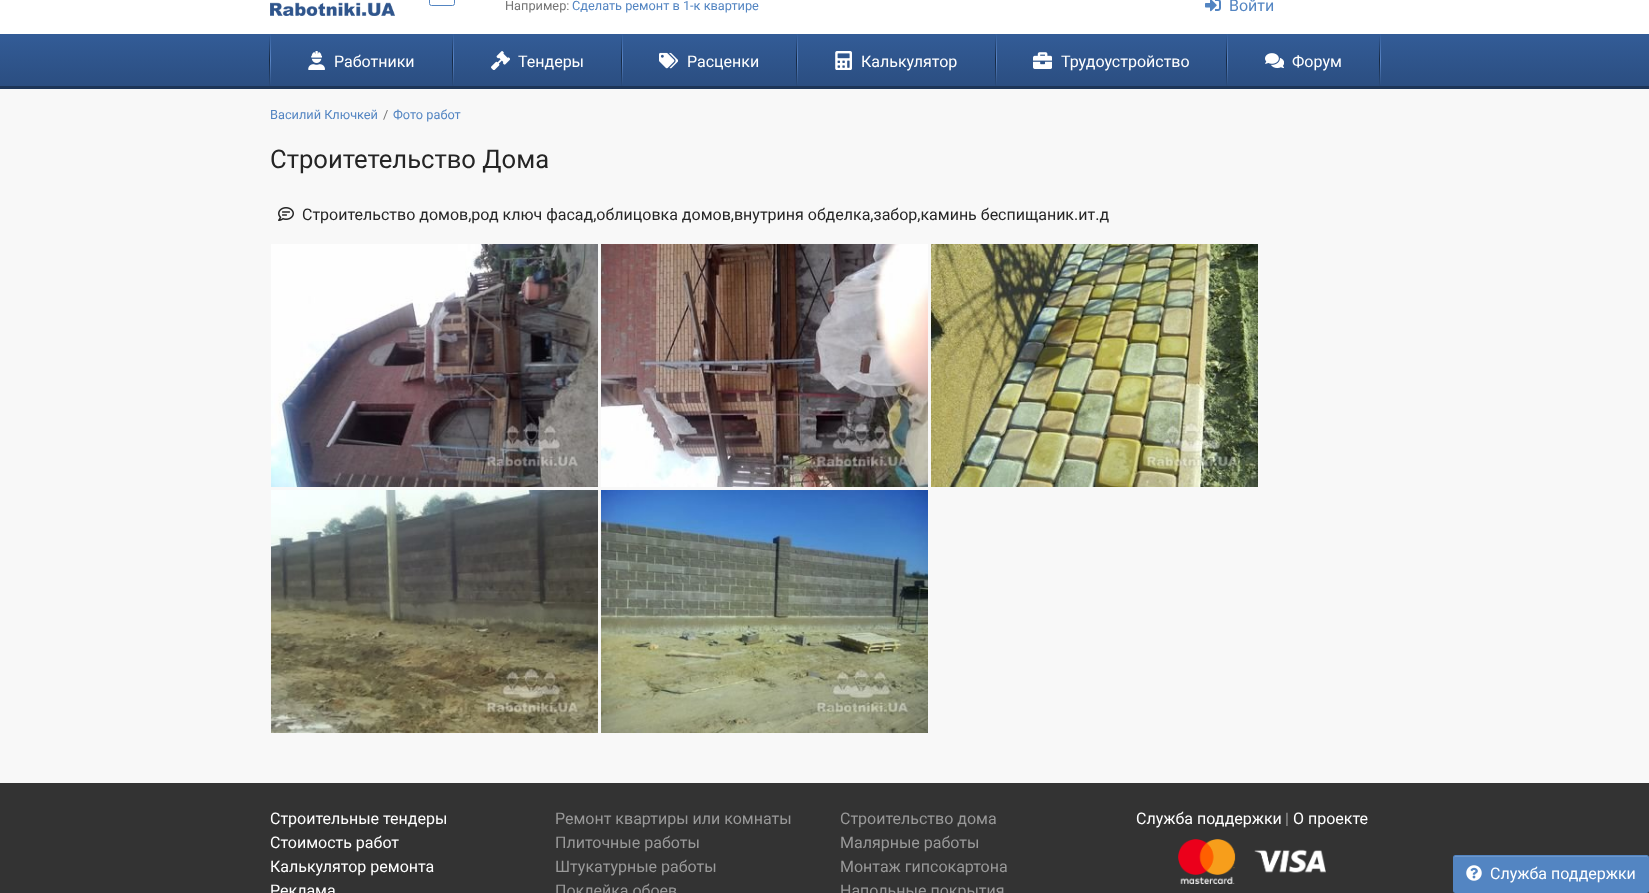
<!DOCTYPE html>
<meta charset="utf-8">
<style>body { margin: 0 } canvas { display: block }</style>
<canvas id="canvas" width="1649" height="893"></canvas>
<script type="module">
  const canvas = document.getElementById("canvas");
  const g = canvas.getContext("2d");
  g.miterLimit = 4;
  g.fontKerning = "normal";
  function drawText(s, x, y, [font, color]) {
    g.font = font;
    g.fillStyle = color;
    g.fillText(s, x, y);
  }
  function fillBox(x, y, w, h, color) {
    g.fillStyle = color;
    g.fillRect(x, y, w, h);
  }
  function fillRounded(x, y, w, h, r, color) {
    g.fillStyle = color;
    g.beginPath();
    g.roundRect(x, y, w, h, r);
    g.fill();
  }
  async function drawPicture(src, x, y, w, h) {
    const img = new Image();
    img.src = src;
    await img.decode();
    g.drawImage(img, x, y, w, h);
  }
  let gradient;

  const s1 = ["12.75px Roboto", "#757575"];
  const s2 = ["12.75px Roboto", "#5385C2"];
  const s3 = ["16px Roboto", "#5385C2"];
  const s4 = ["16px Roboto", "#FFFFFF"];
  const s5 = ["25.6px Roboto", "#252525"];
  const s6 = ["16px Roboto", "#252525"];
  const s7 = ["16px Roboto", "#999999"];

  fillBox(0, 0, 1649, 893, "#F8F8F8");
  fillBox(0, 0, 1649, 34, "#FFFFFF");
  await drawPicture("pic1.png", 270, 2, 125, 14);
  g.beginPath();
  g.roundRect(429.5, -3.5, 25, 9, 2);
  g.strokeStyle = "#5385C2";
  g.stroke();
  drawText("Например:", 505, 10, s1);
  drawText("Сделать ремонт в 1-к квартире", 572, 10, s2);
  await drawPicture("pic2.png", 1205, 0, 16, 12);
  drawText("Войти", 1229, 11, s3);
  gradient = g.createLinearGradient(825, 34, 825, 86);
  gradient.addColorStop(0, "#335C97");
  gradient.addColorStop(1, "#2B4E81");
  g.fillStyle = gradient;
  g.fillRect(0, 34, 1649, 52);
  fillBox(0, 86, 1649, 3, "#1D3557");
  gradient = g.createLinearGradient(270, 34, 270, 86);
  gradient.addColorStop(0, "#345E9B");
  gradient.addColorStop(0.5, "#152740");
  gradient.addColorStop(1, "#2A4C7D");
  g.fillStyle = gradient;
  g.fillRect(269, 34, 1, 52);
  gradient = g.createLinearGradient(271, 34, 271, 86);
  gradient.addColorStop(0, "#345E9B");
  gradient.addColorStop(0.5, "#5A86C7");
  gradient.addColorStop(1, "#2A4C7D");
  g.fillStyle = gradient;
  g.fillRect(270, 34, 1, 52);
  await drawPicture("pic3.png", 308, 51, 17, 19);
  drawText("Работники", 334, 67, s4);
  gradient = g.createLinearGradient(453, 34, 453, 86);
  gradient.addColorStop(0, "#345E9B");
  gradient.addColorStop(0.5, "#152740");
  gradient.addColorStop(1, "#2A4C7D");
  g.fillStyle = gradient;
  g.fillRect(452, 34, 1, 52);
  gradient = g.createLinearGradient(454, 34, 454, 86);
  gradient.addColorStop(0, "#345E9B");
  gradient.addColorStop(0.5, "#5A86C7");
  gradient.addColorStop(1, "#2A4C7D");
  g.fillStyle = gradient;
  g.fillRect(453, 34, 1, 52);
  await drawPicture("pic4.png", 491, 51, 19, 19);
  drawText("Тендеры", 518, 67, s4);
  gradient = g.createLinearGradient(622, 34, 622, 86);
  gradient.addColorStop(0, "#345E9B");
  gradient.addColorStop(0.5, "#152740");
  gradient.addColorStop(1, "#2A4C7D");
  g.fillStyle = gradient;
  g.fillRect(621, 34, 1, 52);
  gradient = g.createLinearGradient(623, 34, 623, 86);
  gradient.addColorStop(0, "#345E9B");
  gradient.addColorStop(0.5, "#5A86C7");
  gradient.addColorStop(1, "#2A4C7D");
  g.fillStyle = gradient;
  g.fillRect(622, 34, 1, 52);
  await drawPicture("pic5.png", 659, 52, 19, 17);
  drawText("Расценки", 687, 67, s4);
  gradient = g.createLinearGradient(797, 34, 797, 86);
  gradient.addColorStop(0, "#345E9B");
  gradient.addColorStop(0.5, "#152740");
  gradient.addColorStop(1, "#2A4C7D");
  g.fillStyle = gradient;
  g.fillRect(796, 34, 1, 52);
  gradient = g.createLinearGradient(798, 34, 798, 86);
  gradient.addColorStop(0, "#345E9B");
  gradient.addColorStop(0.5, "#5A86C7");
  gradient.addColorStop(1, "#2A4C7D");
  g.fillStyle = gradient;
  g.fillRect(797, 34, 1, 52);
  await drawPicture("pic6.png", 835, 51, 17, 19);
  drawText("Калькулятор", 861, 67, s4);
  gradient = g.createLinearGradient(996, 34, 996, 86);
  gradient.addColorStop(0, "#345E9B");
  gradient.addColorStop(0.5, "#152740");
  gradient.addColorStop(1, "#2A4C7D");
  g.fillStyle = gradient;
  g.fillRect(995, 34, 1, 52);
  gradient = g.createLinearGradient(997, 34, 997, 86);
  gradient.addColorStop(0, "#345E9B");
  gradient.addColorStop(0.5, "#5A86C7");
  gradient.addColorStop(1, "#2A4C7D");
  g.fillStyle = gradient;
  g.fillRect(996, 34, 1, 52);
  await drawPicture("pic7.png", 1033, 52, 19, 17);
  drawText("Трудоустройство", 1061, 67, s4);
  gradient = g.createLinearGradient(1227, 34, 1227, 86);
  gradient.addColorStop(0, "#345E9B");
  gradient.addColorStop(0.5, "#152740");
  gradient.addColorStop(1, "#2A4C7D");
  g.fillStyle = gradient;
  g.fillRect(1226, 34, 1, 52);
  gradient = g.createLinearGradient(1228, 34, 1228, 86);
  gradient.addColorStop(0, "#345E9B");
  gradient.addColorStop(0.5, "#5A86C7");
  gradient.addColorStop(1, "#2A4C7D");
  g.fillStyle = gradient;
  g.fillRect(1227, 34, 1, 52);
  await drawPicture("pic8.png", 1265, 53, 19, 16);
  drawText("Форум", 1292, 67, s4);
  gradient = g.createLinearGradient(1380, 34, 1380, 86);
  gradient.addColorStop(0, "#345E9B");
  gradient.addColorStop(0.5, "#152740");
  gradient.addColorStop(1, "#2A4C7D");
  g.fillStyle = gradient;
  g.fillRect(1379, 34, 1, 52);
  gradient = g.createLinearGradient(1381, 34, 1381, 86);
  gradient.addColorStop(0, "#345E9B");
  gradient.addColorStop(0.5, "#5A86C7");
  gradient.addColorStop(1, "#2A4C7D");
  g.fillStyle = gradient;
  g.fillRect(1380, 34, 1, 52);
  drawText("Василий Ключкей", 270, 119, s2);
  drawText("/", 383, 119, s1);
  drawText("Фото работ", 393, 119, s2);
  drawText("Строитетельство Дома", 270, 168, s5);
  await drawPicture("pic9.png", 278, 207, 16, 14);
  drawText("Строительство домов,род ключ фасад,облицовка домов,внутриня обделка,забор,каминь беспищаник.ит.д", 302, 220, s6);
  await drawPicture("pic10.png", 271, 244, 327, 243);
  await drawPicture("pic11.png", 601, 244, 327, 243);
  await drawPicture("pic12.png", 931, 244, 327, 243);
  await drawPicture("pic13.png", 271, 490, 327, 243);
  await drawPicture("pic14.png", 601, 490, 327, 243);
  fillBox(0, 783, 1649, 110, "#333333");
  drawText("Строительные тендеры", 270, 824, s4);
  drawText("Стоимость работ", 270, 848, s4);
  drawText("Калькулятор ремонта", 270, 872, s4);
  drawText("Реклама", 270, 896, s4);
  drawText("Ремонт квартиры или комнаты", 555, 824, s7);
  drawText("Строительство дома", 840, 824, s7);
  drawText("Плиточные работы", 555, 848, s7);
  drawText("Малярные работы", 840, 848, s7);
  drawText("Штукатурные работы", 555, 872, s7);
  drawText("Монтаж гипсокартона", 840, 872, s7);
  drawText("Поклейка обоев", 555, 896, s7);
  drawText("Напольные покрытия", 840, 896, s7);
  drawText("Служба поддержки", 1136, 824, s4);
  drawText("|", 1285, 824, s7);
  drawText("О проекте", 1293, 824, s4);
  await drawPicture("pic15.png", 1178, 839, 148, 45);
  fillRounded(1453, 855, 196, 38, 2.5, "#5385C2");
  g.fillStyle = "#6D97CB";
  g.beginPath();
  g.moveTo(1455, 857);
  g.lineTo(1647, 857);
  g.lineTo(1648, 858);
  g.bezierCurveTo(1648, 857, 1648, 856, 1646, 856);
  g.lineTo(1455, 856);
  g.lineTo(1454, 858);
  g.closePath();
  g.fill();
  await drawPicture("pic16.png", 1466, 865, 16, 16);
  drawText("Служба поддержки", 1490, 879, s4);
</script>
